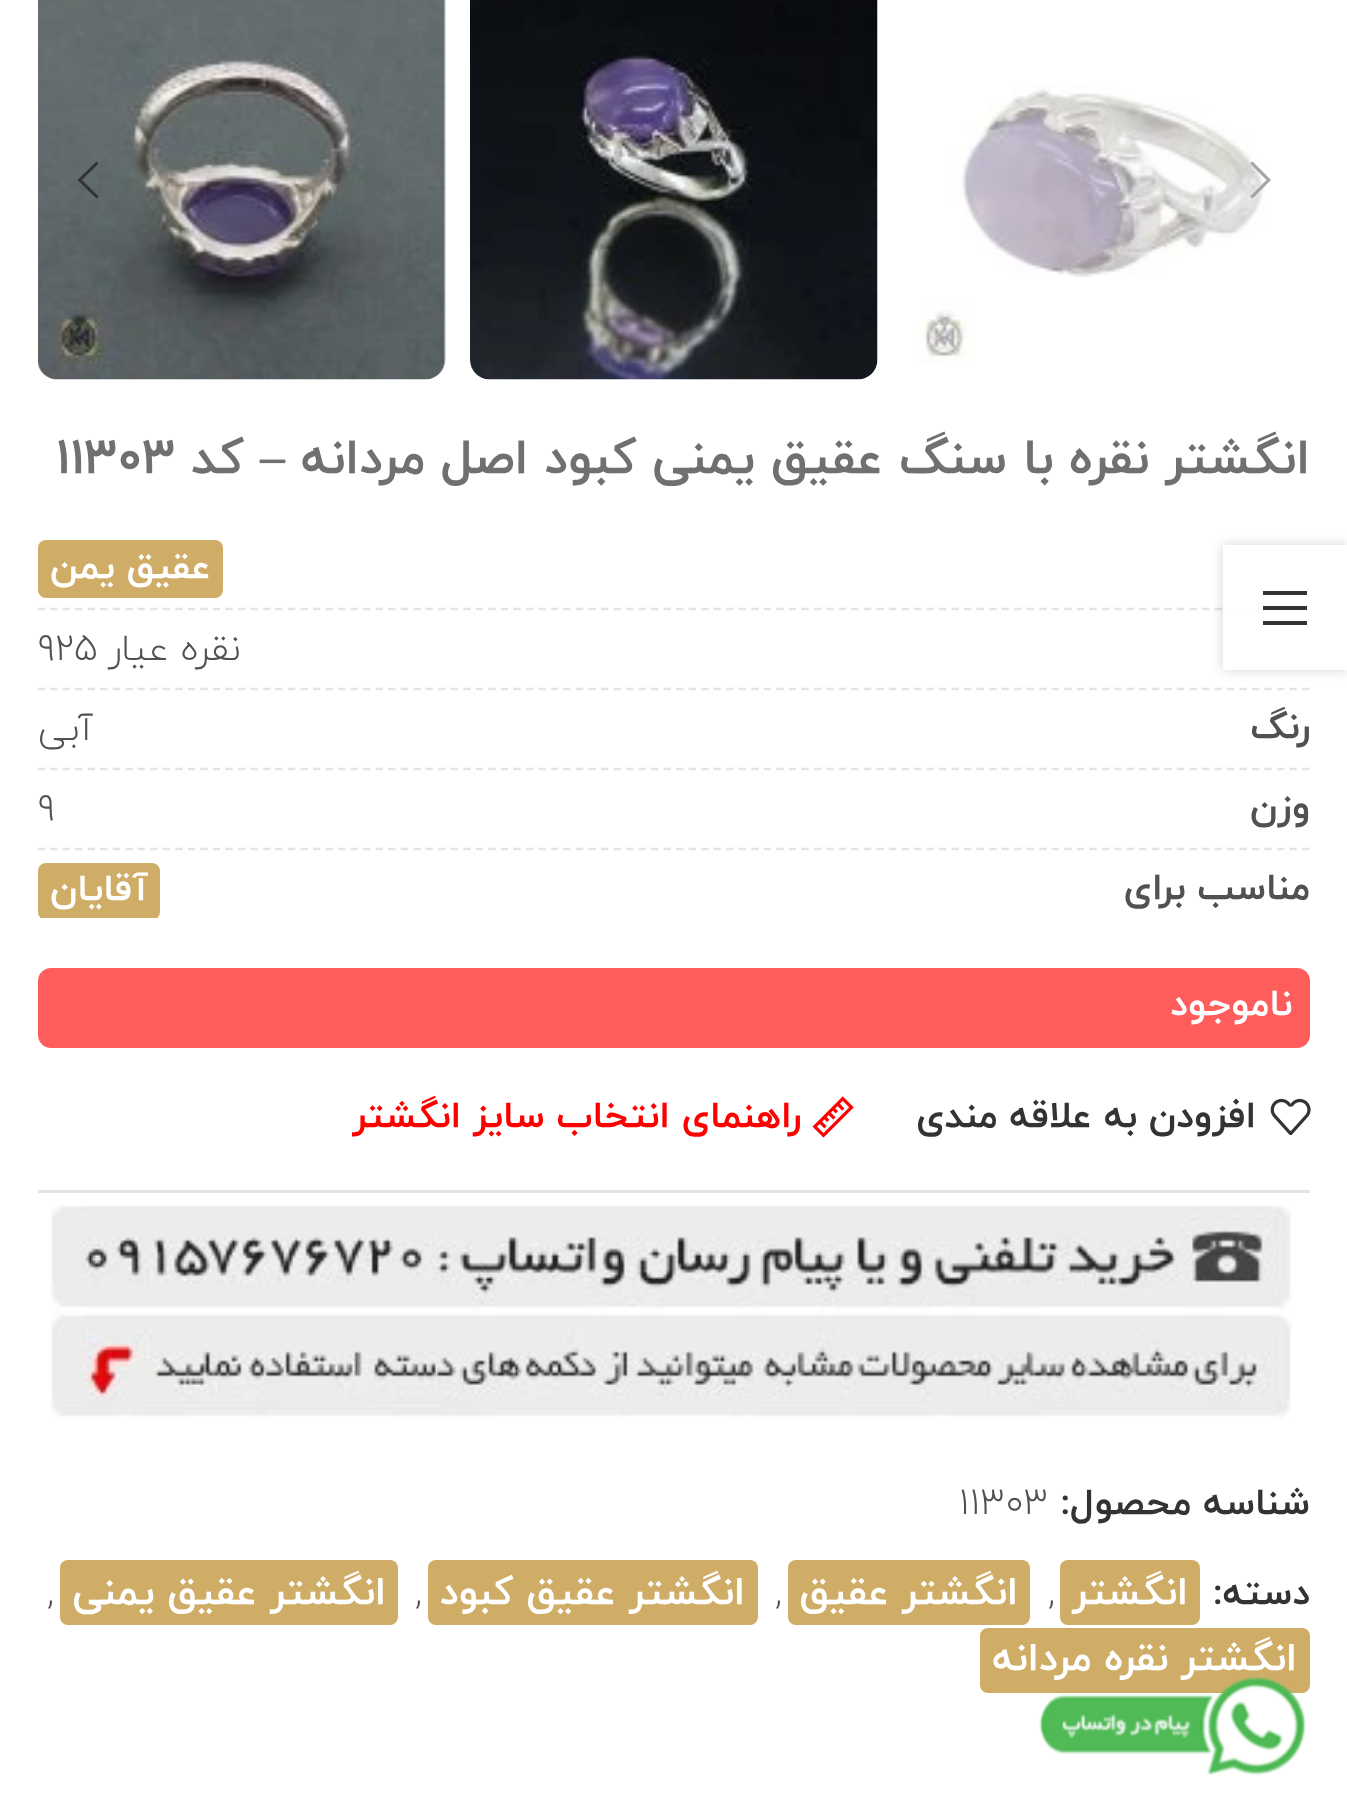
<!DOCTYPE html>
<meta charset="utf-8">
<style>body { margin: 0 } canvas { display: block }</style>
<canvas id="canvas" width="1347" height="1814"></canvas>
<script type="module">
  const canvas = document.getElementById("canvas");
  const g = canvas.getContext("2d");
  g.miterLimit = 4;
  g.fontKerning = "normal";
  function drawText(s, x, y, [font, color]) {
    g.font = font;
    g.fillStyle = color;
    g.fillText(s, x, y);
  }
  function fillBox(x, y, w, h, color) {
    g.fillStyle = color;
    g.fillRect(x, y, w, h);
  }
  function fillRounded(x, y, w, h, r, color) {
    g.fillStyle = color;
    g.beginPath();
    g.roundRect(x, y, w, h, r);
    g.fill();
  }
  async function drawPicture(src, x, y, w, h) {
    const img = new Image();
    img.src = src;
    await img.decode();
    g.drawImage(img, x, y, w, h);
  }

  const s1 = ["bold 50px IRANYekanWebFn", "#707070"];
  const s2 = ["bold 50px Liberation Serif", "#707070"];
  const s3 = ["bold 37.5px IRANYekanWebFn", "#FFFFFF"];
  const s4 = ["300 37.5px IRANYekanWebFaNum", "#515151"];
  const s5 = ["bold 37.5px IRANYekanWebFn", "#515151"];
  const s6 = ["bold 37.5px IRANYekanWebFn", "#333333"];
  const s7 = ["bold 37.5px IRANYekanWebFn", "#FF0000"];
  const s8 = ["bold 40px IRANYekanWebFn", "#FFFFFF"];

  fillBox(0, 0, 1347, 1814, "#FFFFFF");
  await drawPicture("pic1.png", 918, 84, 347, 279);
  await drawPicture("pic2.png", 470, 0, 408, 380);
  await drawPicture("pic3.png", 38, 0, 408, 380);
  g.fillStyle = "#A5A5A5";
  g.beginPath();
  g.moveTo(1250, 163.5);
  g.lineTo(1266.5, 180);
  g.lineTo(1250, 196.5);
  g.lineTo(1252.5, 198.5);
  g.lineTo(1271, 180);
  g.lineTo(1252.5, 161.5);
  g.closePath();
  g.fill();
  g.fillStyle = "#333333";
  g.beginPath();
  g.moveTo(98.5, 163.5);
  g.lineTo(96.5, 161.5);
  g.lineTo(77.5, 180);
  g.lineTo(96.5, 198.5);
  g.lineTo(98.5, 196.5);
  g.lineTo(82, 180);
  g.closePath();
  g.fill();
  g.direction = "rtl";
  drawText("انگشتر نقره با سنگ عقیق یمنی کبود اصل مردانه", 1310, 473, s1);
  drawText("–", 285, 473, s2);
  drawText("کد", 244, 473, s1);
  g.direction = "ltr";
  drawText("۱۱۳۰۳", 56, 473, s1);
  g.save();
  g.beginPath();
  g.rect(38, 540, 1272, 378);
  g.clip();
  g.beginPath();
  g.moveTo(37.5, 609);
  g.lineTo(1310, 609);
  g.strokeStyle = "#E4E4E4";
  g.lineWidth = 2.5;
  g.setLineDash([7.5, 5.02]);
  g.stroke();
  g.restore();
  fillRounded(38, 540, 185, 58, 8, "#D0AD67");
  g.direction = "rtl";
  drawText("عقیق یمن", 211, 578, s3);
  g.save();
  g.beginPath();
  g.rect(38, 540, 1272, 378);
  g.clip();
  g.beginPath();
  g.moveTo(37.5, 689);
  g.lineTo(1310, 689);
  g.strokeStyle = "#E4E4E4";
  g.lineWidth = 2.5;
  g.setLineDash([7.5, 5.02]);
  g.stroke();
  g.restore();
  drawText("نقره عیار", 241, 660, s4);
  g.direction = "ltr";
  drawText("925", 38, 660, s4);
  g.save();
  g.beginPath();
  g.rect(38, 540, 1272, 378);
  g.clip();
  g.beginPath();
  g.moveTo(37.5, 769);
  g.lineTo(1310, 769);
  g.strokeStyle = "#E4E4E4";
  g.lineWidth = 2.5;
  g.setLineDash([7.5, 5.02]);
  g.stroke();
  g.restore();
  g.direction = "rtl";
  drawText("رنگ", 1310, 738, s5);
  drawText("آبی", 93, 740, s4);
  g.save();
  g.beginPath();
  g.rect(38, 540, 1272, 378);
  g.clip();
  g.beginPath();
  g.moveTo(37.5, 849);
  g.lineTo(1310, 849);
  g.strokeStyle = "#E4E4E4";
  g.lineWidth = 2.5;
  g.setLineDash([7.5, 5.02]);
  g.stroke();
  g.restore();
  drawText("وزن", 1310, 818, s5);
  g.direction = "ltr";
  drawText("9", 38, 820, s4);
  g.direction = "rtl";
  drawText("مناسب برای", 1310, 899, s5);
  g.save();
  g.beginPath();
  g.rect(38, 540, 1272, 378);
  g.clip();
  fillRounded(38, 863, 122, 57, 8, "#D0AD67");
  g.restore();
  drawText("آقایان", 148, 900, s3);
  fillRounded(38, 968, 1272, 80, 13, "#FF5C5C");
  drawText("ناموجود", 1292, 1015, s3);
  await drawPicture("pic4.png", 1270, 1098, 41, 37);
  drawText("افزودن به علاقه مندی", 1256, 1127, s6);
  await drawPicture("pic5.png", 812, 1096, 42, 42);
  drawText("راهنمای انتخاب سایز انگشتر", 801, 1127, s7);
  await drawPicture("pic6.png", 50, 1205, 1243, 215);
  fillBox(38, 1190, 1272, 3, "#E4E4E4");
  drawText("شناسه محصول:", 1310, 1514, s6);
  g.direction = "ltr";
  drawText("11303", 959, 1514, s4);
  g.direction = "rtl";
  drawText("دسته:", 1310, 1604, s6);
  fillRounded(1060, 1560, 140, 65, 8, "#D0AD67");
  drawText("انگشتر", 1188, 1604, s8);
  g.direction = "ltr";
  drawText(",", 1048, 1604, s4);
  fillRounded(788, 1560, 242, 65, 8, "#D0AD67");
  g.direction = "rtl";
  drawText("انگشتر عقیق", 1018, 1604, s8);
  g.direction = "ltr";
  drawText(",", 775, 1604, s4);
  fillRounded(428, 1560, 330, 65, 8, "#D0AD67");
  g.direction = "rtl";
  drawText("انگشتر عقیق کبود", 745, 1604, s8);
  g.direction = "ltr";
  drawText(",", 415, 1604, s4);
  fillRounded(60, 1560, 338, 65, 8, "#D0AD67");
  g.direction = "rtl";
  drawText("انگشتر عقیق یمنی", 386, 1604, s8);
  g.direction = "ltr";
  drawText(",", 47, 1604, s4);
  fillRounded(980, 1628, 330, 65, 8, "#D0AD67");
  g.direction = "rtl";
  drawText("انگشتر نقره مردانه", 1297, 1670, s8);
  await drawPicture("pic7.png", 1039, 1676, 267, 100);
  g.save();
  g.beginPath();
  g.moveTo(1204, 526);
  g.lineTo(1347, 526);
  g.lineTo(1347, 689);
  g.lineTo(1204, 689);
  g.closePath();
  g.moveTo(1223, 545);
  g.lineTo(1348, 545);
  g.lineTo(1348, 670);
  g.lineTo(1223, 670);
  g.closePath();
  g.clip("evenodd");
  g.fillStyle = "rgba(0, 0, 0, 0.17)";
  g.filter = "blur(6px)";
  g.beginPath();
  g.rect(1223, 545, 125, 125);
  g.fill();
  g.filter = "none";
  g.restore();
  fillBox(1227, 607, 83, 4, "rgba(255, 255, 255, 0.9)");
  g.fillStyle = "#333333";
  g.beginPath();
  g.moveTo(1263, 595);
  g.lineTo(1307, 595);
  g.lineTo(1307, 591);
  g.lineTo(1263, 591);
  g.closePath();
  g.moveTo(1263, 610);
  g.lineTo(1307, 610);
  g.lineTo(1307, 606);
  g.lineTo(1263, 606);
  g.closePath();
  g.moveTo(1263, 625);
  g.lineTo(1307, 625);
  g.lineTo(1307, 621);
  g.lineTo(1263, 621);
  g.closePath();
  g.fill();
</script>
